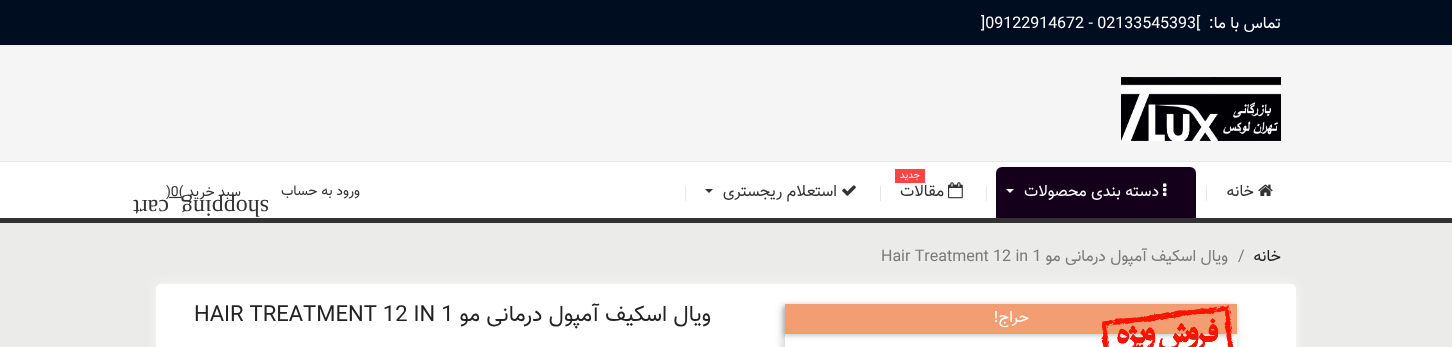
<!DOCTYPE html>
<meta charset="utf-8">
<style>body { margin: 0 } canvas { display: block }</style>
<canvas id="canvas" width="1452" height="347"></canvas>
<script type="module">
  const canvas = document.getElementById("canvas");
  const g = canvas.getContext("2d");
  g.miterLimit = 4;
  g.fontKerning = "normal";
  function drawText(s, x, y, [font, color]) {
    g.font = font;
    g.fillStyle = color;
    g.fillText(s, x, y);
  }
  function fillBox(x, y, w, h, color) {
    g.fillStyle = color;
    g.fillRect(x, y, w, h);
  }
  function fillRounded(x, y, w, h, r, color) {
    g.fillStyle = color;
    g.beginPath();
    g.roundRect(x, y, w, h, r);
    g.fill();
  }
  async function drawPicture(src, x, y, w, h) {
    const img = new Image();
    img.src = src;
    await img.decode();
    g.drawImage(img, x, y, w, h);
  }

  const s1 = ["16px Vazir", "#FFFFFF"];
  const s2 = ["16px Vazir", "#333333"];
  const s3 = ["10px Vazir", "#FFFFFF"];
  const s4 = ["14px Vazir", "#333333"];
  const s5 = ["16px Vazir", "#232323"];
  const s6 = ["16px Vazir", "#7A7A7A"];
  const s7 = ["22px Vazir", "#232323"];

  fillBox(0, 0, 1452, 347, "#F5F5F5");
  fillBox(0, 0, 1452, 45, "#000D21");
  fillBox(0, 45, 1452, 2, "#F1F1F1");
  g.direction = "rtl";
  drawText("تماس با ما:", 1281, 28, s1);
  g.direction = "ltr";
  drawText("]09122914672 - 02133545393[", 981, 28, s1);
  await drawPicture("pic1.png", 1121, 77, 160, 64);
  fillBox(0, 162, 1452, 56, "#FFFFFF");
  fillBox(0, 161, 1452, 1, "#E7E7E7");
  fillBox(0, 218, 1452, 5, "#333333");
  await drawPicture("pic2.png", 1258, 184, 15, 12);
  g.direction = "rtl";
  drawText("خانه", 1254, 196, s2);
  fillBox(1206, 186, 1, 15, "#E7E7E7");
  g.fillStyle = "#15001C";
  g.beginPath();
  g.roundRect(996, 167, 200, 51, [6, 6, 0, 0]);
  g.fill();
  await drawPicture("pic3.png", 1163, 183, 4, 13);
  drawText("دسته بندی محصولات", 1159, 196, s1);
  g.beginPath();
  g.moveTo(1006, 189);
  g.lineTo(1014, 189);
  g.lineTo(1010, 193);
  g.closePath();
  g.fill();
  fillBox(986, 186, 1, 15, "#E7E7E7");
  fillBox(895, 169, 30, 14, "#FC4444");
  drawText("جدید", 920, 178, s3);
  await drawPicture("pic4.png", 948, 182, 15, 17);
  drawText("مقالات", 944, 196, s2);
  fillBox(880, 186, 1, 15, "#E7E7E7");
  await drawPicture("pic5.png", 842, 185, 14, 11);
  drawText("استعلام ریجستری", 837, 196, s2);
  g.beginPath();
  g.moveTo(705, 189);
  g.lineTo(713, 189);
  g.lineTo(709, 193);
  g.closePath();
  g.fill();
  fillBox(685, 186, 1, 15, "#E7E7E7");
  drawText("ورود به حساب", 360, 195, s4);
  drawText("سبد خرید", 241, 196, s4);
  g.direction = "ltr";
  drawText(")0(", 166, 196, s4);
  g.font = "24px Liberation Serif";
  g.save();
  g.translate(269, 200);
  g.rotate(180 * Math.PI / 180);
  g.fillText("shopping_cart", 0, 0);
  g.restore();
  fillBox(0, 223, 1452, 124, "#EBECEA");
  g.direction = "rtl";
  drawText("خانه", 1281, 261, s5);
  g.direction = "ltr";
  drawText("/", 1238, 261, s6);
  g.fillStyle = "#F8F8F8";
  g.filter = "blur(6px)";
  g.beginPath();
  g.roundRect(156, 284, 1140, 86, 5);
  g.fill();
  g.filter = "none";
  g.direction = "rtl";
  drawText("ویال اسکیف", 1228, 261, s6);
  drawText("آمپول درمانی مو", 1147, 261, s6);
  g.direction = "ltr";
  drawText("Hair Treatment 12 in 1", 881, 261, s6);
  fillRounded(156, 284, 1140, 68, 5, "#FFFFFF");
  g.save();
  g.beginPath();
  g.moveTo(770, 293);
  g.lineTo(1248, 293);
  g.lineTo(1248, 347);
  g.lineTo(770, 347);
  g.closePath();
  g.moveTo(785, 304);
  g.lineTo(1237, 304);
  g.lineTo(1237, 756);
  g.lineTo(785, 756);
  g.closePath();
  g.clip("evenodd");
  g.fillStyle = "rgba(0, 0, 0, 0.2)";
  g.filter = "blur(4px)";
  g.beginPath();
  g.rect(783, 306, 452, 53);
  g.fill();
  g.filter = "none";
  g.restore();
  g.fillStyle = "rgba(0, 0, 0, 0.2)";
  g.filter = "blur(2px)";
  g.beginPath();
  g.rect(783, 306, 452, 30);
  g.fill();
  g.filter = "none";
  fillBox(785, 304, 452, 30, "#F39D72");
  await drawPicture("pic6.png", 1101, 305, 133, 42);
  await drawPicture("pic7.png", 1101, 305, 133, 42);
  g.direction = "rtl";
  drawText("حراج!", 1029, 322, s1);
  drawText("ویال اسکیف", 711, 321, s7);
  drawText("آمپول درمانی مو", 599, 321, s7);
  g.direction = "ltr";
  drawText("HAIR TREATMENT 12 IN 1", 194, 321, s7);
</script>
